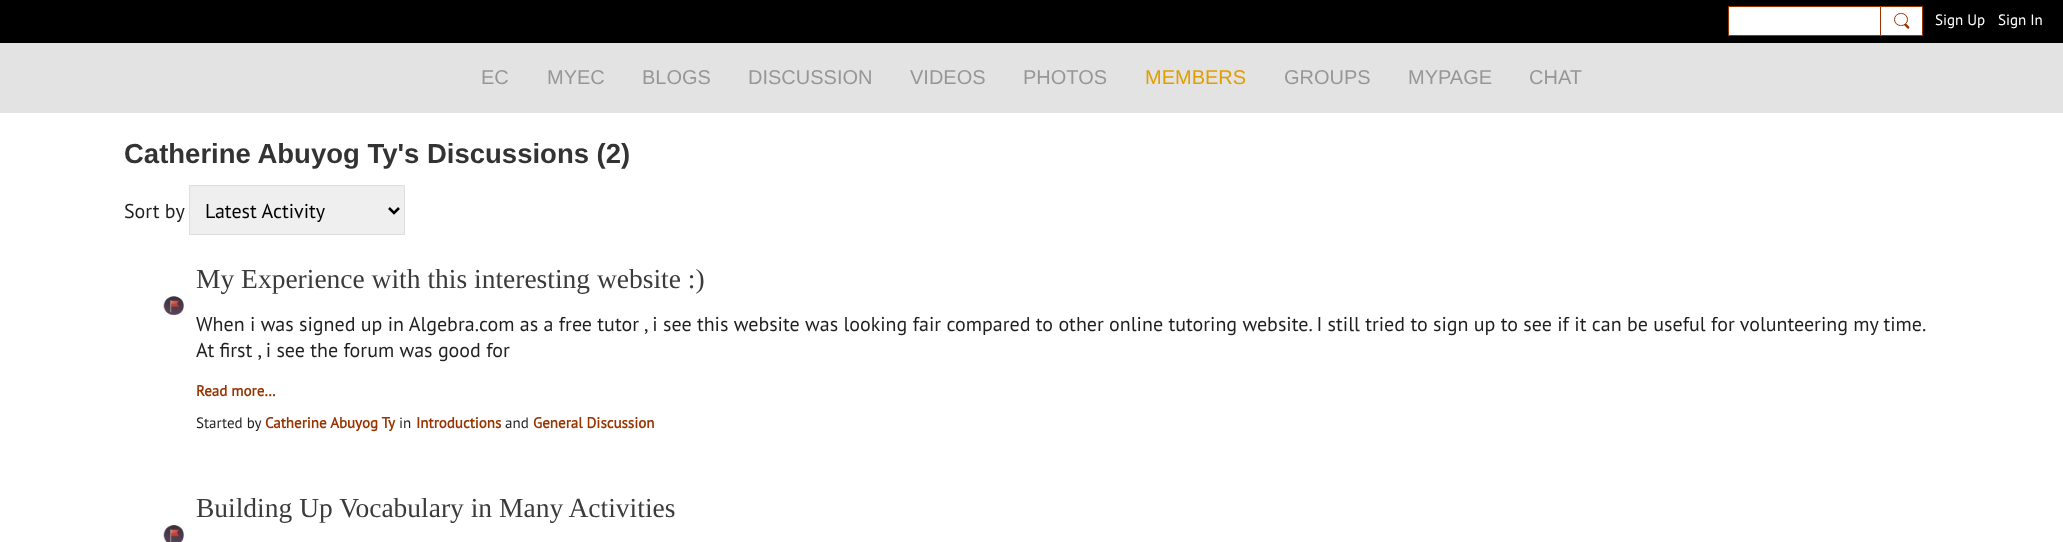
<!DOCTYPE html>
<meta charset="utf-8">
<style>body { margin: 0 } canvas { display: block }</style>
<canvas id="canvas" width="2063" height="542"></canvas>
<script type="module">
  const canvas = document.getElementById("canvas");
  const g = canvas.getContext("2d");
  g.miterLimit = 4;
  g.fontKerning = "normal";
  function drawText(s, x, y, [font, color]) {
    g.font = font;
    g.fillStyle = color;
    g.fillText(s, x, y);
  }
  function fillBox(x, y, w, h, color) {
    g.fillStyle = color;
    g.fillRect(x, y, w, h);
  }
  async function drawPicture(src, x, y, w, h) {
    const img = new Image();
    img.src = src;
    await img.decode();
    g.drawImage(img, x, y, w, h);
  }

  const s1 = ["15px PT Sans", "#FFFFFF"];
  const s2 = ["20px Liberation Sans", "#979797"];
  const s3 = ["20px Liberation Sans", "#E09E00"];
  const s4 = ["bold 27.5px Liberation Sans", "#333333"];
  const s5 = ["20px PT Sans", "#1F1F1F"];
  const s6 = ["20px PT Sans", "#000000"];
  const s7 = ["27.5px Liberation Serif", "#3B3B3B"];
  const s8 = ["bold 15px PT Sans", "#993300"];
  const s9 = ["15px PT Sans", "#1F1F1F"];

  fillBox(0, 0, 2063, 542, "#E3E3E3");
  fillBox(0, 0, 2063, 43, "#000000");
  g.fillStyle = "#FFFFFF";
  g.beginPath();
  g.rect(1728.5, 6.5, 152, 29);
  g.fill();
  g.strokeStyle = "#993300";
  g.stroke();
  g.beginPath();
  g.rect(1880.5, 6.5, 42, 29);
  g.fill();
  g.stroke();
  g.beginPath();
  g.roundRect(1894.5, 13.5, 13, 12, 6);
  g.stroke();
  g.fillStyle = "#993300";
  g.beginPath();
  g.moveTo(1906.5, 24);
  g.lineTo(1908.5, 26);
  g.bezierCurveTo(1910.5, 28, 1908.5, 29.5, 1907.5, 28.5);
  g.lineTo(1904.5, 25.5);
  g.bezierCurveTo(1903.5, 24.5, 1905.5, 23, 1906.5, 24);
  g.closePath();
  g.fill();
  drawText("Sign Up", 1935, 25, s1);
  drawText("Sign In", 1998, 25, s1);
  drawText("EC", 481, 84, s2);
  drawText("MYEC", 547, 84, s2);
  drawText("BLOGS", 642, 84, s2);
  drawText("DISCUSSION", 748, 84, s2);
  drawText("VIDEOS", 910, 84, s2);
  drawText("PHOTOS", 1023, 84, s2);
  drawText("MEMBERS", 1145, 84, s3);
  drawText("GROUPS", 1284, 84, s2);
  drawText("MYPAGE", 1408, 84, s2);
  drawText("CHAT", 1529, 84, s2);
  fillBox(0, 113, 2063, 429, "#FFFFFF");
  drawText("Catherine Abuyog Ty's Discussions (2)", 124, 163, s4);
  drawText("Sort by", 124, 218, s5);
  g.fillStyle = "#EFEFEF";
  g.beginPath();
  g.rect(189.5, 185.5, 215, 49);
  g.fill();
  g.strokeStyle = "#DDDDDD";
  g.stroke();
  g.beginPath();
  g.moveTo(389, 208);
  g.lineTo(394, 213);
  g.lineTo(399, 208);
  g.strokeStyle = "#000000";
  g.lineWidth = 2.5;
  g.stroke();
  drawText("Latest Activity", 205, 218, s6);
  await drawPicture("pic1.png", 163, 296, 21, 19);
  drawText("My Experience with this interesting website :)", 196, 288, s7);
  drawText("When i was signed up in Algebra.com as a free tutor , i see this website was looking fair compared to other online tutoring website. I still tried to sign up to see if it can be useful for volunteering my time.", 196, 331, s5);
  drawText("At first , i see the forum was good for", 196, 357, s5);
  drawText("Read more…", 196, 396, s8);
  drawText("Started by", 196, 428, s9);
  drawText("Catherine Abuyog Ty", 265, 428, s8);
  drawText("in", 399, 428, s9);
  drawText("Introductions", 416, 428, s8);
  drawText("and", 505, 428, s9);
  drawText("General Discussion", 533, 428, s8);
  drawText("Building Up Vocabulary in Many Activities", 196, 517, s7);
  await drawPicture("pic2.png", 163, 525, 21, 17);
</script>
